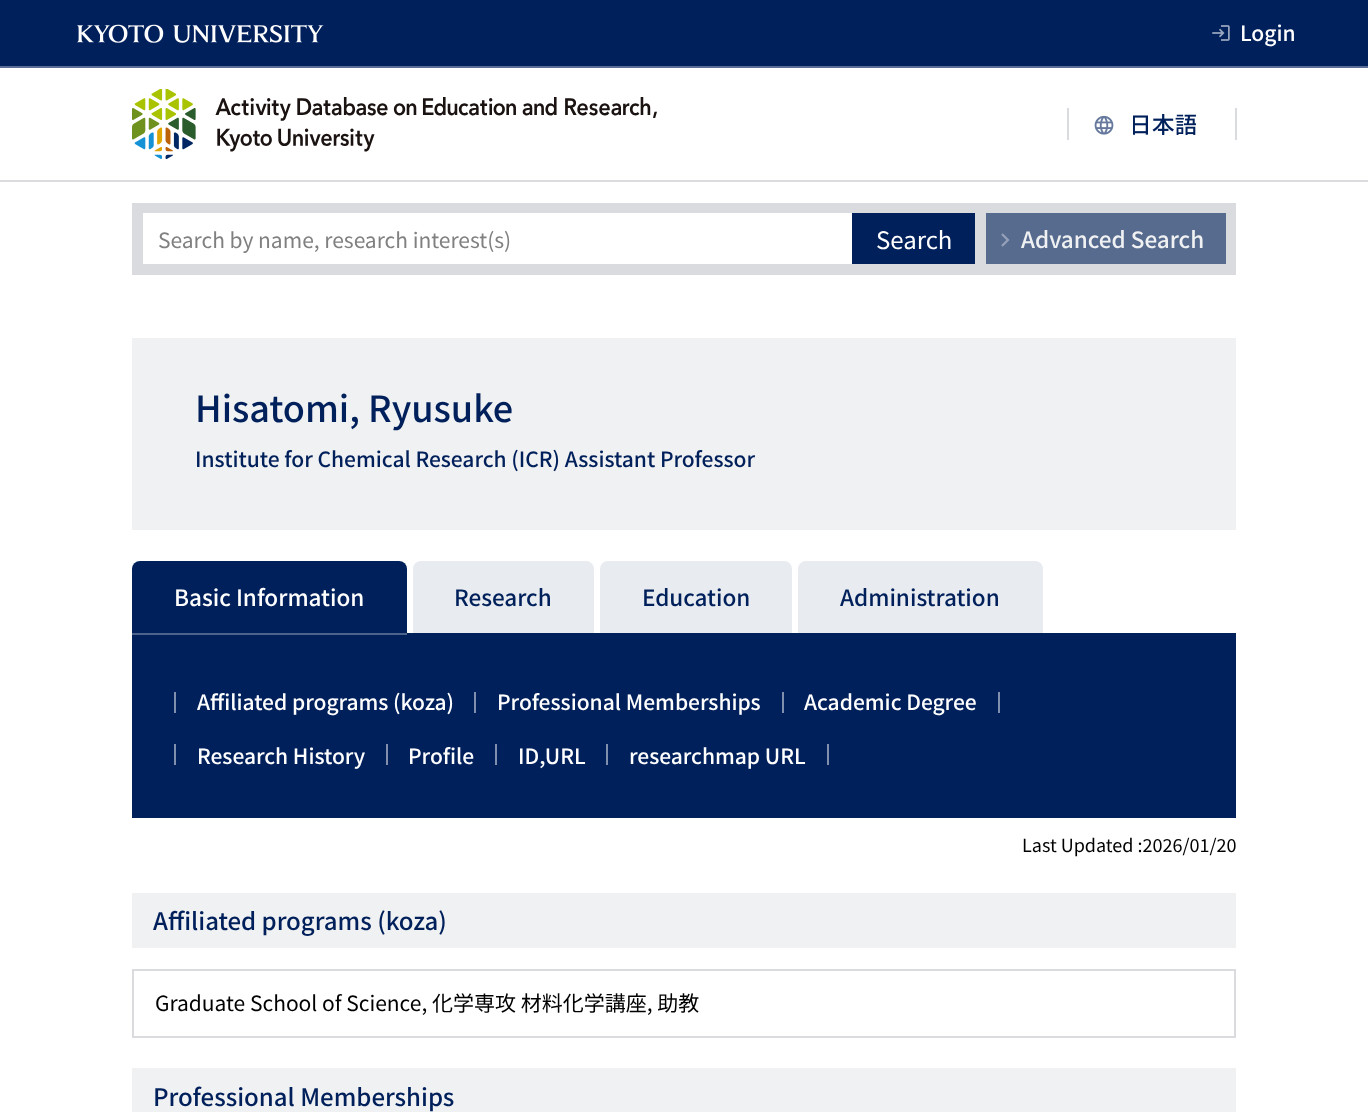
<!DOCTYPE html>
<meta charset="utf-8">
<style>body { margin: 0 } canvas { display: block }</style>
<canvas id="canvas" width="1368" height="1112"></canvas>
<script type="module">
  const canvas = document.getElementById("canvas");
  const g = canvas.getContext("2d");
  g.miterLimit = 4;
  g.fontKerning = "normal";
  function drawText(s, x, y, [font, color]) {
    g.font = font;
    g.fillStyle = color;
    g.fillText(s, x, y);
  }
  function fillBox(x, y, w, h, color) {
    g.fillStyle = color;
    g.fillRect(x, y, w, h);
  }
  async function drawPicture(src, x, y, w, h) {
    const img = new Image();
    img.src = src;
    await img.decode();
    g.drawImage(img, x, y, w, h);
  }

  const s1 = ["500 21px Noto Sans JP", "#FFFFFF"];
  const s2 = ["21px Noto Sans JP", "#808080"];
  const s3 = ["24px Noto Sans JP", "#FFFFFF"];
  const s4 = ["500 22.5px Noto Sans JP", "#F0F1F2"];
  const s5 = ["500 36px Noto Sans JP", "#00205B"];
  const s6 = ["500 21px Noto Sans JP", "#00205B"];
  const s7 = ["500 22.5px Noto Sans JP", "#FFFFFF"];
  const s8 = ["500 22.5px Noto Sans JP", "#00205B"];
  const s9 = ["18px Noto Sans JP", "#000000"];
  const s10 = ["500 24px Noto Sans JP", "#00205B"];
  const s11 = ["21px Noto Sans JP", "#000000"];

  fillBox(0, 0, 1368, 1112, "#FFFFFF");
  fillBox(0, 180, 1368, 2, "#D9DBDE");
  fillBox(0, 0, 1368, 66, "#00205B");
  fillBox(0, 66, 1368, 2, "#596E94");
  await drawPicture("pic1.png", 77, 24, 247, 19);
  await drawPicture("pic2.png", 1212, 25, 18, 16);
  drawText("Login", 1240, 41, s1);
  await drawPicture("pic3.png", 132, 89, 525, 70);
  fillBox(1235, 108, 2, 32, "#D9DBDE");
  fillBox(1067, 108, 2, 32, "#D9DBDE");
  await drawPicture("pic4.png", 1094, 115, 20, 20);
  await drawPicture("pic5.png", 1133, 114, 63, 21);
  fillBox(132, 203, 1104, 72, "#D9DBDE");
  fillBox(143, 213, 709, 51, "#FFFFFF");
  drawText("Search by name, research interest(s)", 158, 248, s2);
  fillBox(852, 213, 123, 51, "#00205B");
  drawText("Search", 876, 249, s3);
  fillBox(986, 213, 240, 51, "#576B8F");
  await drawPicture("pic6.png", 1001, 233, 9, 14);
  drawText("Advanced Search", 1021, 248, s4);
  fillBox(132, 338, 1104, 192, "#F0F1F2");
  drawText("Hisatomi, Ryusuke", 195, 422, s5);
  drawText("Institute for Chemical Research (ICR) Assistant Professor", 195, 467, s6);
  fillBox(132, 633, 1104, 185, "#00205B");
  g.beginPath();
  g.roundRect(132, 561, 275, 74, [8, 8, 0, 0]);
  g.fill();
  fillBox(132, 633, 275, 2, "#4D638C");
  drawText("Basic Information", 174, 606, s7);
  g.fillStyle = "#E8EBF0";
  g.beginPath();
  g.roundRect(413, 561, 181, 72, [8, 8, 0, 0]);
  g.fill();
  drawText("Research", 454, 606, s8);
  g.fillStyle = "#E8EBF0";
  g.beginPath();
  g.roundRect(600, 561, 192, 72, [8, 8, 0, 0]);
  g.fill();
  drawText("Education", 642, 606, s8);
  g.fillStyle = "#E8EBF0";
  g.beginPath();
  g.roundRect(798, 561, 245, 72, [8, 8, 0, 0]);
  g.fill();
  drawText("Administration", 840, 606, s8);
  fillBox(474, 692, 2, 21, "#7F8FAD");
  fillBox(174, 692, 2, 21, "#7F8FAD");
  drawText("Affiliated programs (koza)", 197, 710, s1);
  fillBox(782, 692, 2, 21, "#7F8FAD");
  drawText("Professional Memberships", 497, 710, s1);
  fillBox(998, 692, 2, 21, "#7F8FAD");
  drawText("Academic Degree", 804, 710, s1);
  fillBox(386, 744, 2, 21, "#7F8FAD");
  fillBox(174, 744, 2, 21, "#7F8FAD");
  drawText("Research History", 197, 764, s1);
  fillBox(495, 744, 2, 21, "#7F8FAD");
  drawText("Profile", 408, 764, s1);
  fillBox(606, 744, 2, 21, "#7F8FAD");
  drawText("ID,URL", 518, 764, s1);
  fillBox(827, 744, 2, 21, "#7F8FAD");
  drawText("researchmap URL", 629, 764, s1);
  drawText("Last Updated :2026/01/20", 1022, 852, s9);
  fillBox(132, 893, 1104, 55, "#F0F1F2");
  drawText("Affiliated programs (koza)", 153, 930, s10);
  g.strokeStyle = "#D9DBDE";
  g.lineWidth = 2;
  g.strokeRect(133, 970, 1102, 67);
  drawText("Graduate School of Science, 化学専攻 材料化学講座, 助教", 155, 1011, s11);
  fillBox(132, 1068, 1104, 44, "#F0F1F2");
  drawText("Professional Memberships", 153, 1106, s10);
</script>
